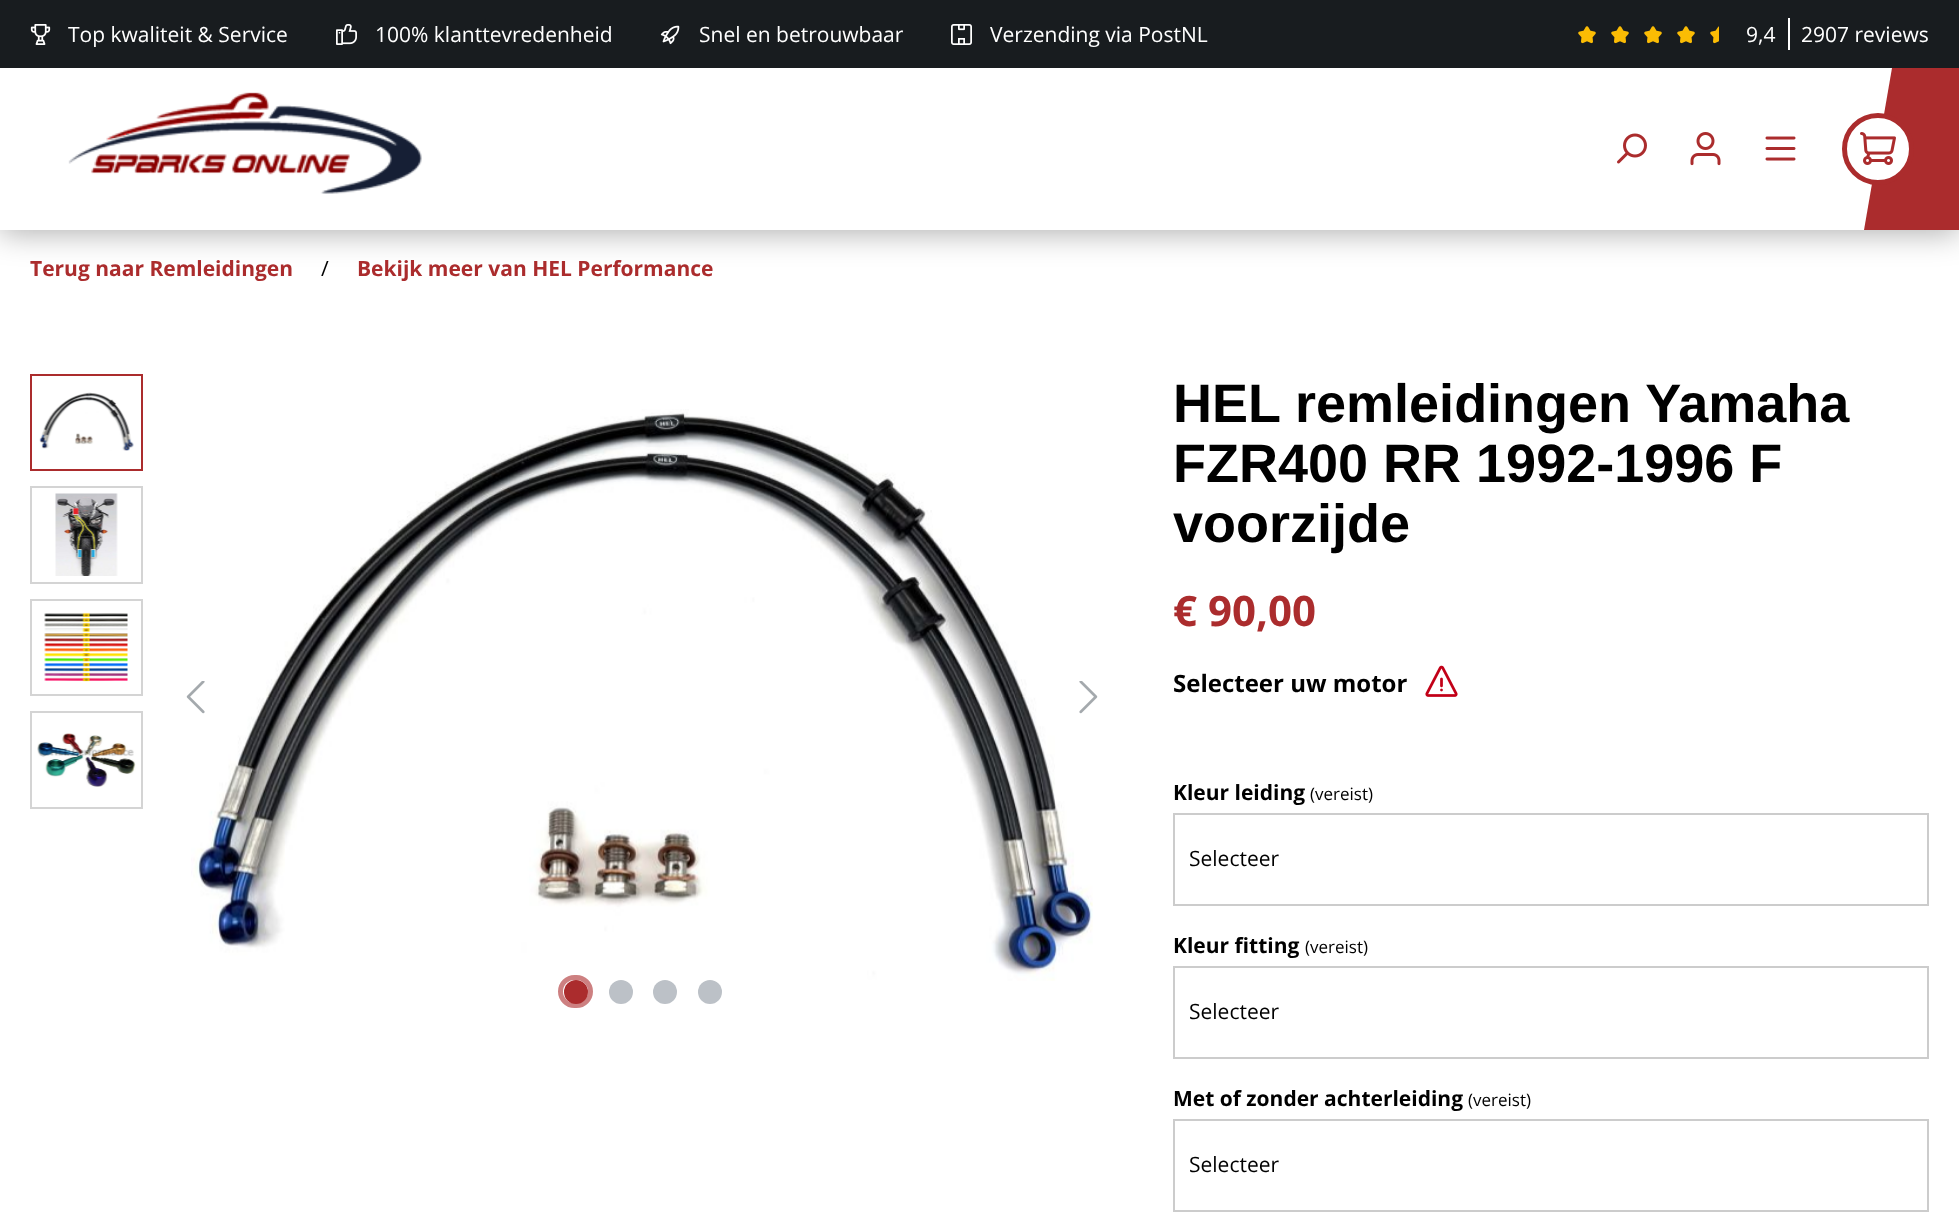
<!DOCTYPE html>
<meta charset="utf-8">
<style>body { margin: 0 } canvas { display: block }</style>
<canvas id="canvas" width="1959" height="1218"></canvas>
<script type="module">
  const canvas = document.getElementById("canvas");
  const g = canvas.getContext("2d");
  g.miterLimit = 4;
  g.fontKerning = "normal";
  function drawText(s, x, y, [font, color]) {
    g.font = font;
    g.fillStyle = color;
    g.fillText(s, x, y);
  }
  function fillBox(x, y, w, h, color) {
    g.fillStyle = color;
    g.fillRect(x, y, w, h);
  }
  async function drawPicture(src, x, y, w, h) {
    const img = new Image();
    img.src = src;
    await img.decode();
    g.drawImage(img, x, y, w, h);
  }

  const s1 = ["21px Open Sans", "#FFFFFF"];
  const s2 = ["bold 21px Open Sans", "#AB2C2D"];
  const s3 = ["21px Open Sans", "#000000"];
  const s4 = ["bold 54px Liberation Sans", "#000000"];
  const s5 = ["bold 42px Open Sans", "#AB2C2D"];
  const s6 = ["bold 24px Open Sans", "#000000"];
  const s7 = ["bold 21px Open Sans", "#000000"];
  const s8 = ["17px Open Sans", "#000000"];

  fillBox(0, 0, 1959, 1218, "#FFFFFF");
  g.fillStyle = "rgba(0, 0, 0, 0.3)";
  g.filter = "blur(15px)";
  g.beginPath();
  g.rect(0, 5, 1959, 229);
  g.fill();
  g.filter = "none";
  fillBox(0, 0, 1959, 68, "#181C1F");
  await drawPicture("pic1.png", 30, 24, 21, 21);
  drawText("Top kwaliteit & Service", 68, 42, s1);
  await drawPicture("pic2.png", 336, 24, 21, 21);
  drawText("100% klanttevredenheid", 375, 42, s1);
  await drawPicture("pic3.png", 660, 25, 20, 20);
  drawText("Snel en betrouwbaar", 699, 42, s1);
  await drawPicture("pic4.png", 951, 24, 21, 21);
  drawText("Verzending via PostNL", 990, 42, s1);
  await drawPicture("pic5.png", 1578, 26, 18, 18);
  await drawPicture("pic5.png", 1611, 26, 18, 18);
  await drawPicture("pic5.png", 1644, 26, 18, 18);
  await drawPicture("pic5.png", 1677, 26, 18, 18);
  await drawPicture("pic6.png", 1710, 26, 9, 18);
  fillBox(1788, 18, 2, 32, "#FFFFFF");
  drawText("9,4", 1746, 42, s1);
  drawText("2907 reviews", 1801, 42, s1);
  fillBox(0, 68, 1820, 162, "#FFFFFF");
  await drawPicture("pic7.png", 68, 92, 354, 102);
  await drawPicture("pic8.png", 1617, 133, 30, 31);
  await drawPicture("pic9.png", 1690, 132, 31, 34);
  await drawPicture("pic10.png", 1765, 136, 31, 25);
  fillBox(1864, 68, 95, 162, "#AB2C2D");
  g.save();
  g.beginPath();
  g.rect(1818, 68, 141, 162);
  g.clip();
  g.fillStyle = "#FFFFFF";
  g.beginPath();
  g.moveTo(1820, 68);
  g.lineTo(1892, 68);
  g.lineTo(1864, 230);
  g.lineTo(1792, 230);
  g.closePath();
  g.fill();
  g.restore();
  g.fillStyle = "#FFFFFF";
  g.beginPath();
  g.arc(1878, 149, 33.5, 0, Math.PI * 2);
  g.fill();
  g.strokeStyle = "#AB2C2D";
  g.lineWidth = 5;
  g.stroke();
  await drawPicture("pic11.png", 1860, 132, 36, 33);
  drawText("Terug naar Remleidingen", 30, 276, s2);
  drawText("/", 321, 276, s3);
  drawText("Bekijk meer van HEL Performance", 357, 276, s2);
  g.lineWidth = 2;
  g.strokeRect(31, 375, 111, 95);
  await drawPicture("pic12.png", 39, 392, 95, 59);
  g.strokeStyle = "#D4D4D4";
  g.strokeRect(31, 487, 111, 96);
  await drawPicture("pic13.png", 55, 493, 63, 83);
  g.strokeRect(31, 600, 111, 95);
  await drawPicture("pic14.png", 44, 612, 84, 70);
  g.strokeRect(31, 712, 111, 96);
  await drawPicture("pic15.png", 37, 733, 99, 54);
  await drawPicture("pic16.png", 191, 409, 902, 572);
  await drawPicture("pic17.png", 186, 681, 19, 33);
  await drawPicture("pic18.png", 1079, 681, 19, 33);
  g.beginPath();
  g.roundRect(560.5, 977.5, 30, 28, 14);
  g.strokeStyle = "#CD8081";
  g.lineWidth = 5;
  g.stroke();
  g.beginPath();
  g.arc(576, 992, 12, 0, Math.PI * 2);
  g.fill();
  g.fillStyle = "#BCC1C7";
  g.beginPath();
  g.arc(621, 992, 12, 0, Math.PI * 2);
  g.fill();
  g.beginPath();
  g.arc(665, 992, 12, 0, Math.PI * 2);
  g.fill();
  g.beginPath();
  g.arc(710, 992, 12, 0, Math.PI * 2);
  g.fill();
  drawText("HEL remleidingen Yamaha", 1173, 422, s4);
  drawText("FZR400 RR 1992-1996 F", 1173, 482, s4);
  drawText("voorzijde", 1173, 542, s4);
  drawText("€ 90,00", 1173, 626, s5);
  drawText("Selecteer uw motor", 1173, 692, s6);
  await drawPicture("pic19.png", 1425, 665, 33, 32);
  drawText("Kleur leiding", 1173, 800, s7);
  drawText("(vereist)", 1310, 800, s8);
  g.strokeStyle = "#CCCCCC";
  g.lineWidth = 2;
  g.strokeRect(1174, 814, 754, 91);
  drawText("Selecteer", 1189, 866, s3);
  drawText("Kleur fitting", 1173, 953, s7);
  drawText("(vereist)", 1305, 953, s8);
  g.strokeRect(1174, 967, 754, 91);
  drawText("Selecteer", 1189, 1019, s3);
  drawText("Met of zonder achterleiding", 1173, 1106, s7);
  drawText("(vereist)", 1468, 1106, s8);
  g.strokeRect(1174, 1120, 754, 91);
  drawText("Selecteer", 1189, 1172, s3);
</script>
